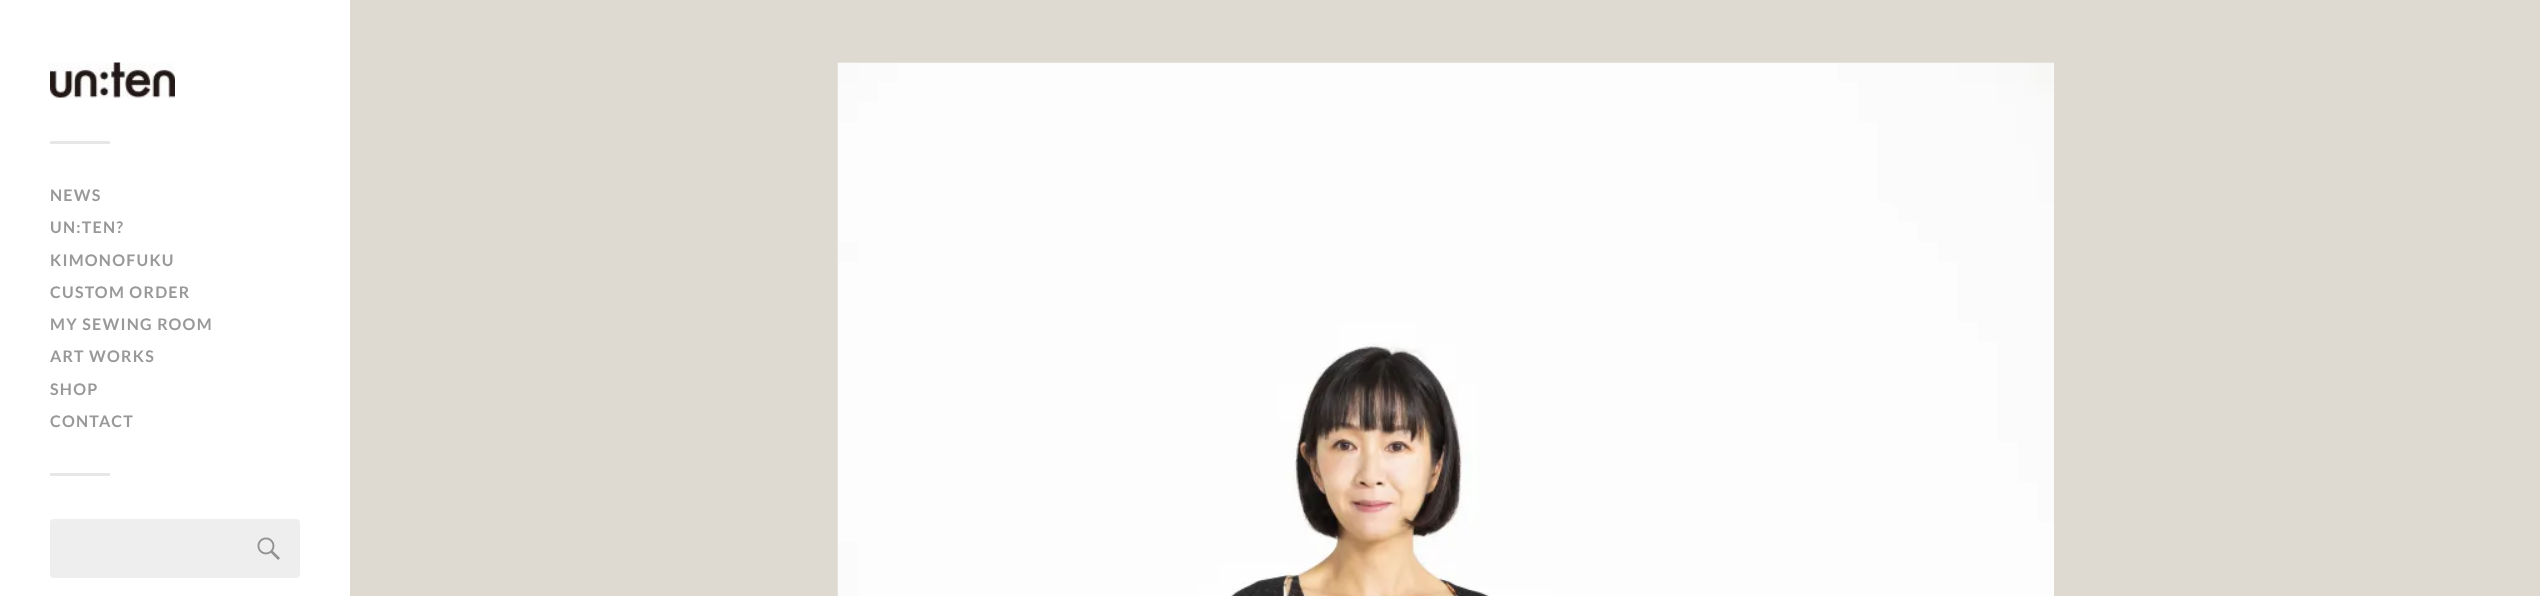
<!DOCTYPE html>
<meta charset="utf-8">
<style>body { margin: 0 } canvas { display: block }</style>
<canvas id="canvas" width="2540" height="596"></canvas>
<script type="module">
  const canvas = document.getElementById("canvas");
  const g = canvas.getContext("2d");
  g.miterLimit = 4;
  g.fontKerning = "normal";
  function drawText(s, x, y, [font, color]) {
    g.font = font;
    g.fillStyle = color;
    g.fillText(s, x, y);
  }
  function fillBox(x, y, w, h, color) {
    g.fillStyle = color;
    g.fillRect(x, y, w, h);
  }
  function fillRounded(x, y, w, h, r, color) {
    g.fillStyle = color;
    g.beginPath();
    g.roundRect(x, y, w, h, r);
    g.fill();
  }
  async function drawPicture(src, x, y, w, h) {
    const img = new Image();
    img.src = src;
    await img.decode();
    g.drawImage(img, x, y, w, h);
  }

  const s1 = ["bold 16px Lato", "#999999"];

  fillBox(0, 0, 2540, 596, "#DEDAD2");
  fillBox(0, 0, 350, 596, "#FFFFFF");
  await drawPicture("pic1.png", 50, 62, 125, 36);
  fillBox(50, 141, 60, 3, "#E7E7E7");
  g.letterSpacing = "1.25px";
  drawText("NEWS", 50, 201, s1);
  drawText("UN:TEN?", 50, 233, s1);
  drawText("KIMONOFUKU", 50, 266, s1);
  drawText("CUSTOM ORDER", 50, 298, s1);
  drawText("MY SEWING ROOM", 50, 330, s1);
  drawText("ART WORKS", 50, 362, s1);
  drawText("SHOP", 50, 395, s1);
  drawText("CONTACT", 50, 427, s1);
  fillBox(50, 473, 60, 3, "#E7E7E7");
  fillRounded(50, 519, 250, 59, 4, "#EEEEEE");
  await drawPicture("pic2.png", 257, 537, 23, 23);
  fillBox(2053, 63, 1, 533, "#FFFFFF");
  await drawPicture("pic3.png", 837, 62, 1217, 534);
</script>
